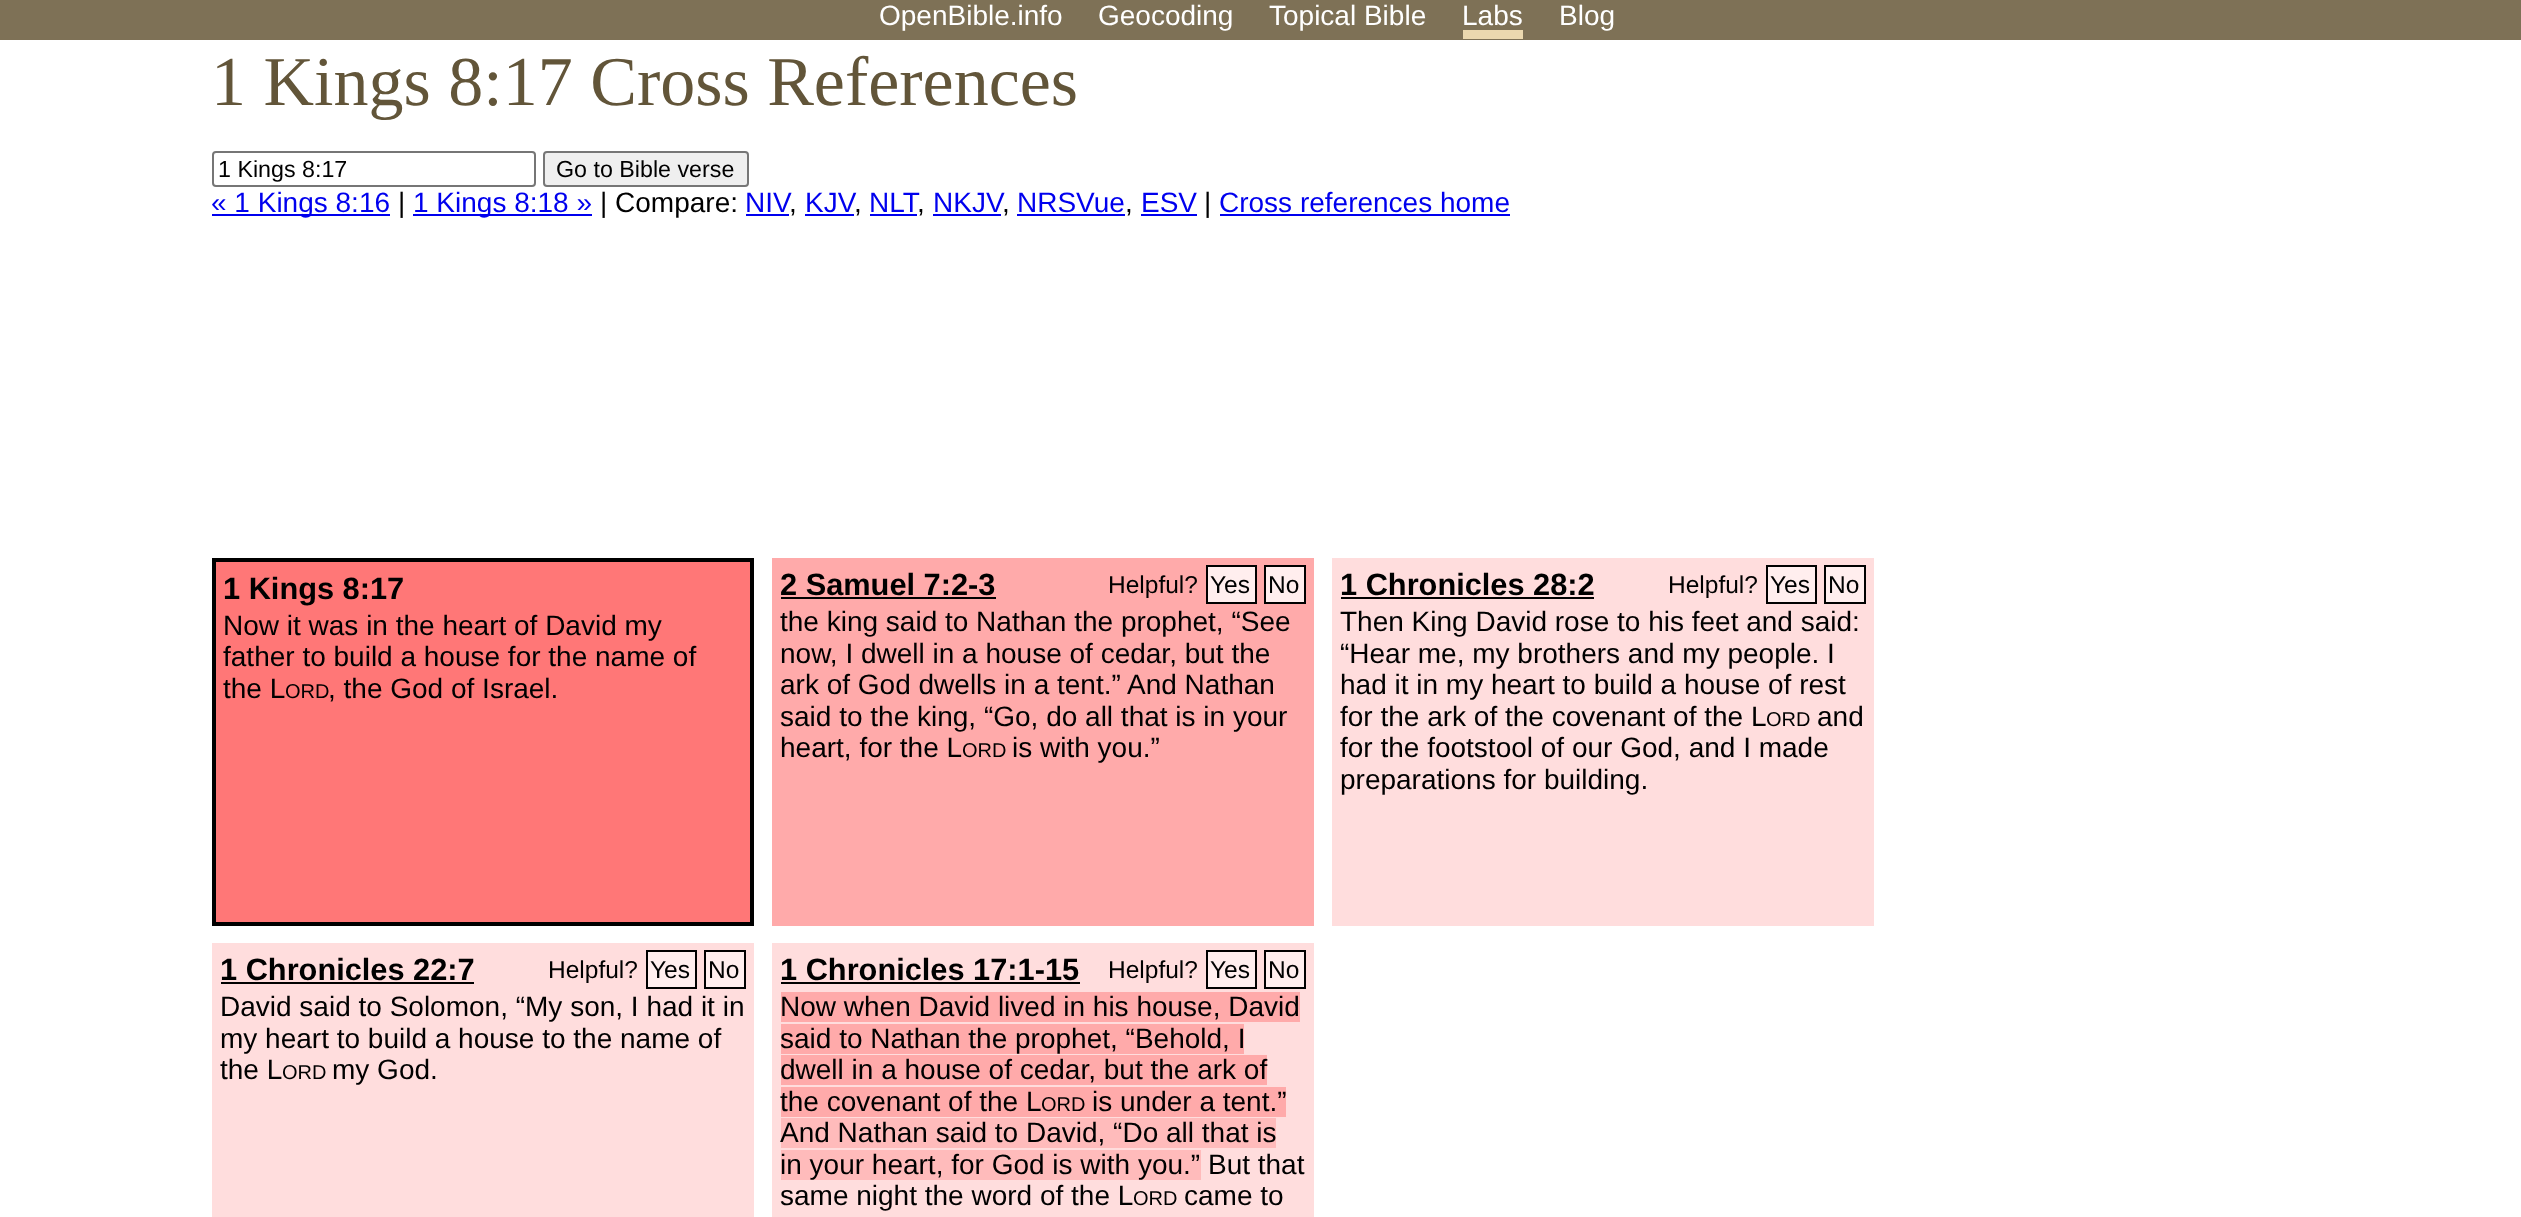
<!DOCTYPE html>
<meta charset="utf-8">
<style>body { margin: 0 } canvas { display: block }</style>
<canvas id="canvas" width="2521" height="1217"></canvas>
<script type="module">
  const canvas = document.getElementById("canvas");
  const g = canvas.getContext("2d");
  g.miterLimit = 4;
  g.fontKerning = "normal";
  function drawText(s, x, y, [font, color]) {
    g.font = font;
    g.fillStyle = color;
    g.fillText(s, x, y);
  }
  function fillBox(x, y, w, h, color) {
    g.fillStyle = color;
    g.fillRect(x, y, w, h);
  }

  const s1 = ["28px Liberation Sans", "#FFFFFF"];
  const s2 = ["70px Liberation Serif", "#625539"];
  const s3 = ["23.25px Liberation Sans", "#000000"];
  const s4 = ["28px Liberation Sans", "#0000EE"];
  const s5 = ["28px Liberation Sans", "#000000"];
  const s6 = ["bold 30.75px Liberation Sans", "#000000"];
  const s7 = ["20px Liberation Sans", "#000000"];
  const s8 = ["24.5px Liberation Sans", "#000000"];

  fillBox(0, 0, 2521, 1217, "#FFFFFF");
  fillBox(0, 0, 2521, 40, "#7E7156");
  drawText("OpenBible.info", 879, 25, s1);
  drawText("Geocoding", 1098, 25, s1);
  drawText("Topical Bible", 1269, 25, s1);
  drawText("Labs", 1462, 25, s1);
  fillBox(1463, 30, 60, 9, "#EBD8AF");
  drawText("Blog", 1559, 25, s1);
  drawText("1 Kings 8:17 Cross References", 211, 105, s2);
  g.beginPath();
  g.roundRect(213, 152, 322, 34, 3);
  g.strokeStyle = "#767676";
  g.lineWidth = 2;
  g.stroke();
  drawText("1 Kings 8:17", 218, 177, s3);
  g.fillStyle = "#EFEFEF";
  g.beginPath();
  g.roundRect(544, 152, 204, 34, 3);
  g.fill();
  g.stroke();
  drawText("Go to Bible verse", 556, 177, s3);
  fillBox(212, 214, 178, 2, "#0000EE");
  drawText("« 1 Kings 8:16", 211, 212, s4);
  drawText("|", 398, 212, s5);
  fillBox(413, 214, 179, 2, "#0000EE");
  drawText("1 Kings 8:18 »", 413, 212, s4);
  drawText("| Compare:", 600, 212, s5);
  drawText("NIV", 745, 212, s4);
  fillBox(746, 214, 43, 2, "#0000EE");
  drawText(",", 789, 212, s5);
  drawText("KJV", 805, 212, s4);
  fillBox(805, 214, 49, 2, "#0000EE");
  drawText(",", 854, 212, s5);
  drawText("NLT", 869, 212, s4);
  fillBox(870, 214, 47, 2, "#0000EE");
  drawText(",", 917, 212, s5);
  drawText("NKJV", 933, 212, s4);
  fillBox(933, 214, 68, 2, "#0000EE");
  drawText(",", 1002, 212, s5);
  drawText("NRSVue", 1017, 212, s4);
  fillBox(1017, 214, 108, 2, "#0000EE");
  drawText(",", 1125, 212, s5);
  drawText("ESV", 1141, 212, s4);
  fillBox(1141, 214, 56, 2, "#0000EE");
  drawText("|", 1204, 212, s5);
  drawText("Cross references home", 1219, 212, s4);
  fillBox(1220, 214, 290, 2, "#0000EE");
  g.fillStyle = "#FF7777";
  g.beginPath();
  g.rect(214, 560, 538, 364);
  g.fill();
  g.strokeStyle = "#000000";
  g.lineWidth = 4;
  g.stroke();
  drawText("1 Kings 8:17", 223, 599, s6);
  drawText("Now it was in the heart of David my", 223, 635, s5);
  drawText("father to build a house for the name of", 223, 666, s5);
  drawText("the L", 223, 698, s5);
  drawText("ORD", 285, 698, s7);
  drawText(", the God of Israel.", 328, 698, s5);
  fillBox(772, 558, 542, 368, "#FFAAAA");
  drawText("2 Samuel 7:2-3", 780, 595, s6);
  fillBox(781, 597, 215, 2, "#000000");
  drawText("Helpful?", 1108, 593, s8);
  g.fillStyle = "#FFEEEE";
  g.beginPath();
  g.rect(1207, 566, 49, 37);
  g.fill();
  g.lineWidth = 2;
  g.stroke();
  drawText("Yes", 1210, 593, s8);
  g.fillStyle = "#FFEEEE";
  g.beginPath();
  g.rect(1265, 566, 40, 37);
  g.fill();
  g.stroke();
  drawText("No", 1268, 593, s8);
  drawText("the king said to Nathan the prophet, “See", 780, 631, s5);
  drawText("now, I dwell in a house of cedar, but the", 780, 663, s5);
  drawText("ark of God dwells in a tent.”", 780, 694, s5);
  drawText("And Nathan", 1127, 694, s5);
  drawText("said to the king, “Go, do all that is in your", 780, 726, s5);
  drawText("heart, for the L", 780, 757, s5);
  drawText("ORD", 962, 757, s7);
  drawText("is with you.”", 1012, 757, s5);
  fillBox(1332, 558, 542, 368, "#FFDDDD");
  drawText("1 Chronicles 28:2", 1340, 595, s6);
  fillBox(1341, 597, 253, 2, "#000000");
  drawText("Helpful?", 1668, 593, s8);
  g.fillStyle = "#FFEEEE";
  g.beginPath();
  g.rect(1767, 566, 49, 37);
  g.fill();
  g.stroke();
  drawText("Yes", 1770, 593, s8);
  g.fillStyle = "#FFEEEE";
  g.beginPath();
  g.rect(1825, 566, 40, 37);
  g.fill();
  g.stroke();
  drawText("No", 1828, 593, s8);
  drawText("Then King David rose to his feet and said:", 1340, 631, s5);
  drawText("“Hear me, my brothers and my people. I", 1340, 663, s5);
  drawText("had it in my heart to build a house of rest", 1340, 694, s5);
  drawText("for the ark of the covenant of the L", 1340, 726, s5);
  drawText("ORD", 1766, 726, s7);
  drawText("and", 1817, 726, s5);
  drawText("for the footstool of our God, and I made", 1340, 757, s5);
  drawText("preparations for building.", 1340, 789, s5);
  fillBox(212, 943, 542, 274, "#FFDDDD");
  drawText("1 Chronicles 22:7", 220, 980, s6);
  fillBox(221, 982, 253, 2, "#000000");
  drawText("Helpful?", 548, 978, s8);
  g.fillStyle = "#FFEEEE";
  g.beginPath();
  g.rect(647, 951, 49, 37);
  g.fill();
  g.stroke();
  drawText("Yes", 650, 978, s8);
  g.fillStyle = "#FFEEEE";
  g.beginPath();
  g.rect(705, 951, 40, 37);
  g.fill();
  g.stroke();
  drawText("No", 708, 978, s8);
  drawText("David said to Solomon, “My son, I had it in", 220, 1016, s5);
  drawText("my heart to build a house to the name of", 220, 1048, s5);
  drawText("the L", 220, 1079, s5);
  drawText("ORD", 282, 1079, s7);
  drawText("my God.", 332, 1079, s5);
  fillBox(772, 943, 542, 274, "#FFDDDD");
  drawText("1 Chronicles 17:1-15", 780, 980, s6);
  fillBox(781, 982, 299, 2, "#000000");
  drawText("Helpful?", 1108, 978, s8);
  g.fillStyle = "#FFEEEE";
  g.beginPath();
  g.rect(1207, 951, 49, 37);
  g.fill();
  g.stroke();
  drawText("Yes", 1210, 978, s8);
  g.fillStyle = "#FFEEEE";
  g.beginPath();
  g.rect(1265, 951, 40, 37);
  g.fill();
  g.stroke();
  drawText("No", 1268, 978, s8);
  fillBox(781, 992, 519, 30, "#FFAAAA");
  drawText("Now when David lived in his house, David", 780, 1016, s5);
  fillBox(781, 1024, 463, 30, "#FFAAAA");
  drawText("said to Nathan the prophet, “Behold, I", 780, 1048, s5);
  fillBox(781, 1055, 486, 30, "#FFAAAA");
  drawText("dwell in a house of cedar, but the ark of", 780, 1079, s5);
  fillBox(781, 1087, 505, 30, "#FFAAAA");
  drawText("the covenant of the L", 780, 1111, s5);
  drawText("ORD", 1041, 1111, s7);
  drawText("is under a tent.”", 1092, 1111, s5);
  fillBox(781, 1118, 495, 30, "#FFBBBB");
  drawText("And Nathan said to David, “Do all that is", 780, 1142, s5);
  fillBox(781, 1150, 420, 30, "#FFBBBB");
  drawText("in your heart, for God is with you.” But that", 780, 1174, s5);
  drawText("same night the word of the L", 780, 1205, s5);
  drawText("ORD", 1133, 1205, s7);
  drawText("came to", 1184, 1205, s5);
</script>
